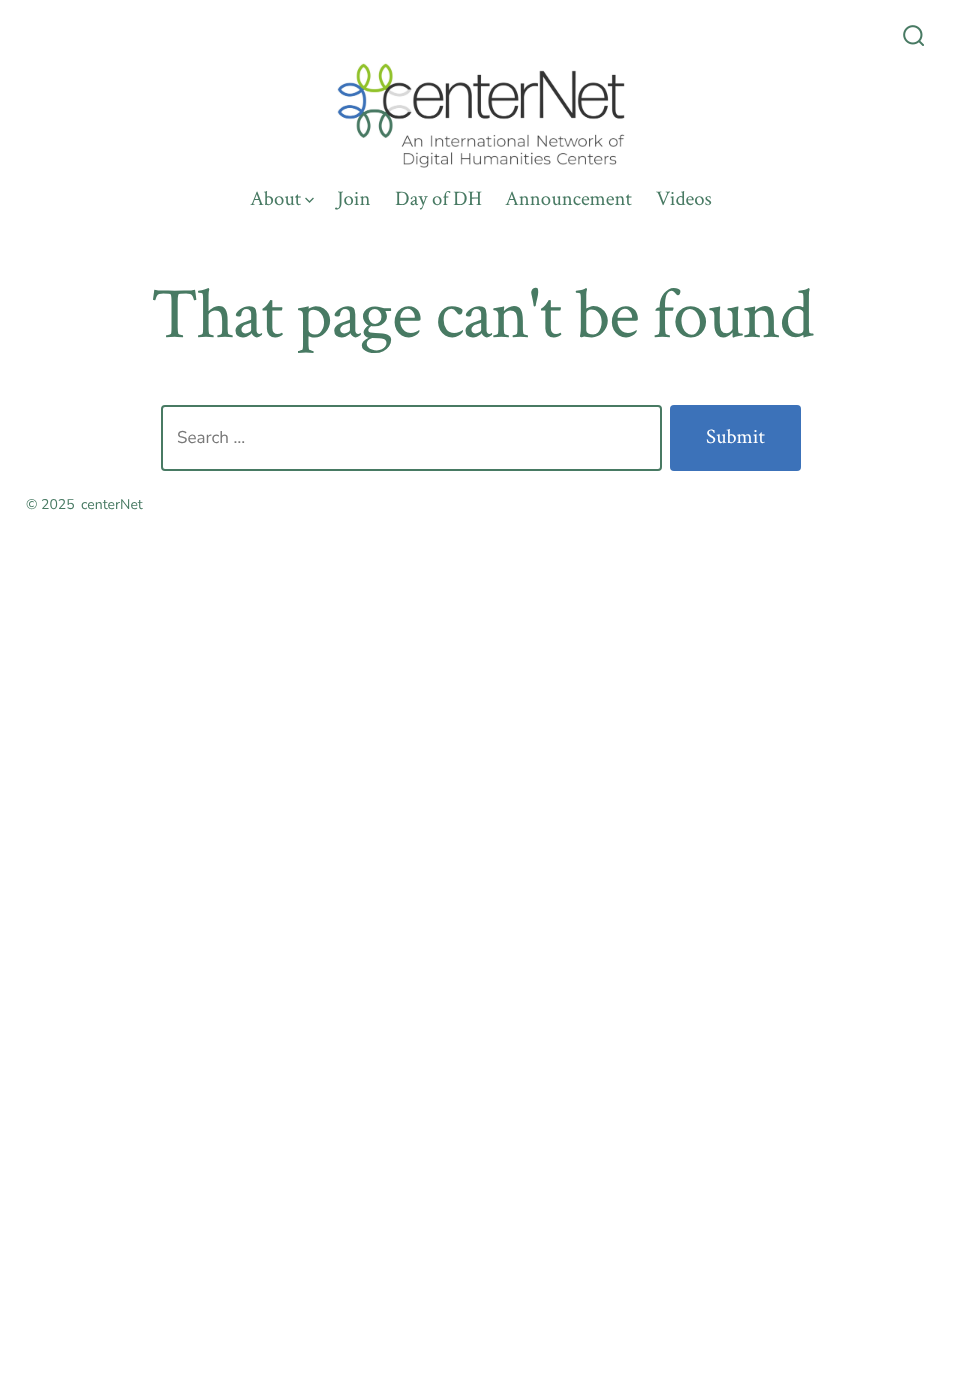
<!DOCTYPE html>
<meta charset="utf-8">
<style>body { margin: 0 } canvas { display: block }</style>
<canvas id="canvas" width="962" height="1375"></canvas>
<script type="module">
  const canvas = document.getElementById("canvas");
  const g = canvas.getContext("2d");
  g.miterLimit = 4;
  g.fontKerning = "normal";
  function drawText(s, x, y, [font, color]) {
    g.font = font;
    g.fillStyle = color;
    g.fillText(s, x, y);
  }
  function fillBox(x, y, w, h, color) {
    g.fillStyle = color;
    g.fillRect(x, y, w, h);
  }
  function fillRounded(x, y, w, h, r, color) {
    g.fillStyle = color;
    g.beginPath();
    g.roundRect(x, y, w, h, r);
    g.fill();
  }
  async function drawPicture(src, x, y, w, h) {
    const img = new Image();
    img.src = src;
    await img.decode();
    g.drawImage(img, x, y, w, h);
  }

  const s1 = ["20.75px Crimson Text", "#487A63"];
  const s2 = ["72.25px Crimson Text", "#487A63"];
  const s3 = ["17px Nunito Sans", "#787878"];
  const s4 = ["20.75px Crimson Text", "#FFFFFF"];
  const s5 = ["14px Nunito Sans", "#487A63"];

  fillBox(0, 0, 962, 1375, "#FFFFFF");
  await drawPicture("pic1.png", 903, 25, 21, 21);
  await drawPicture("pic2.png", 337, 63, 288, 105);
  drawText("About", 250, 205, s1);
  g.beginPath();
  g.moveTo(306, 198.5);
  g.lineTo(309.5, 202);
  g.lineTo(313, 198.5);
  g.strokeStyle = "#487A63";
  g.lineWidth = 1.3;
  g.lineCap = "square";
  g.stroke();
  drawText("Join", 337, 205, s1);
  drawText("Day of DH", 395, 205, s1);
  drawText("Announcement", 505, 205, s1);
  drawText("Videos", 656, 205, s1);
  g.letterSpacing = "-1.4px";
  drawText("That page can't be found", 151, 337, s2);
  g.beginPath();
  g.roundRect(162, 406, 499, 64, 3);
  g.lineWidth = 2;
  g.stroke();
  g.letterSpacing = "0px";
  drawText("Search …", 177, 443, s3);
  fillRounded(670, 405, 131, 66, 4, "#3C72B9");
  drawText("Submit", 706, 443, s4);
  drawText("© 2025", 26, 509, s5);
  drawText("centerNet", 81, 509, s5);
</script>
